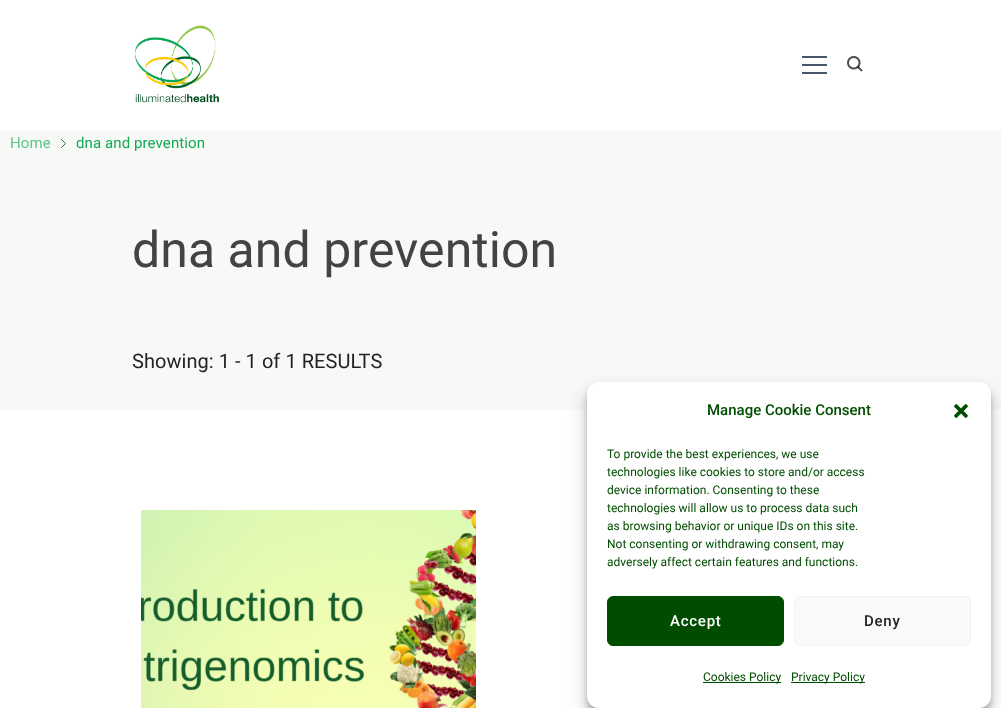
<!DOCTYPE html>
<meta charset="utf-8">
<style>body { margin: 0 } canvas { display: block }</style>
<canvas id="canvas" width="1001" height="708"></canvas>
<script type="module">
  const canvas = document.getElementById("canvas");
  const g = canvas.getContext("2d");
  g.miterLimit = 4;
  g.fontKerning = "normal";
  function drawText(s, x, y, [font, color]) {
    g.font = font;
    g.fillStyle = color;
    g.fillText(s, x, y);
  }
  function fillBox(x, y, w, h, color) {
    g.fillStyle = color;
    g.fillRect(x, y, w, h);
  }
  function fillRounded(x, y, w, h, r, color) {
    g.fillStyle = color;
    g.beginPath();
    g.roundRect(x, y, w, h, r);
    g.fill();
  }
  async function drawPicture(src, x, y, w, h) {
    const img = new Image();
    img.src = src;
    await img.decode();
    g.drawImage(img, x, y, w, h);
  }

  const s1 = ["15px Roboto", "#5FC38B"];
  const s2 = ["15px Roboto", "#15A956"];
  const s3 = ["50px Roboto", "#434343"];
  const s4 = ["20px Roboto", "#232323"];
  const s5 = ["500 15px Roboto", "#004D00"];
  const s6 = ["12px Roboto", "#004D00"];
  const s7 = ["500 15px Roboto", "#FFFFFF"];
  const s8 = ["500 15px Roboto", "#232323"];

  fillBox(0, 0, 1001, 708, "#FFFFFF");
  await drawPicture("pic1.png", 134, 25, 85, 78);
  fillBox(802, 56, 25, 2, "#44576B");
  fillBox(802, 64, 25, 2, "#44576B");
  fillBox(802, 72, 25, 2, "#44576B");
  await drawPicture("pic2.png", 847, 56, 16, 16);
  fillBox(0, 130, 1001, 280, "#F6F9F6");
  g.letterSpacing = "0.1px";
  drawText("Home", 10, 148, s1);
  g.beginPath();
  g.moveTo(61.5, 139.5);
  g.lineTo(65.5, 143.5);
  g.lineTo(61.5, 147.5);
  g.strokeStyle = "#44576B";
  g.lineCap = "round";
  g.stroke();
  drawText("dna and prevention", 76, 148, s2);
  g.letterSpacing = "0.05px";
  drawText("dna and prevention", 132, 267, s3);
  drawText("Showing: 1 - 1 of 1 RESULTS", 132, 368, s4);
  await drawPicture("pic3.png", 141, 510, 335, 198);
  g.fillStyle = "rgba(0, 0, 0, 0.23)";
  g.filter = "blur(3px)";
  g.beginPath();
  g.roundRect(587, 388, 404, 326, 12);
  g.fill();
  g.filter = "none";
  g.fillStyle = "rgba(0, 0, 0, 0.19)";
  g.filter = "blur(10px)";
  g.beginPath();
  g.roundRect(587, 392, 404, 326, 12);
  g.fill();
  g.filter = "none";
  fillRounded(587, 382, 404, 326, 12, "#FFFFFF");
  g.letterSpacing = "0px";
  drawText("Manage Cookie Consent", 707, 415, s5);
  await drawPicture("pic4.png", 954, 404, 14, 14);
  drawText("To provide the best experiences, we use", 607, 458, s6);
  drawText("technologies like cookies to store and/or access", 607, 476, s6);
  drawText("device information. Consenting to these", 607, 494, s6);
  drawText("technologies will allow us to process data such", 607, 512, s6);
  drawText("as browsing behavior or unique IDs on this site.", 607, 530, s6);
  drawText("Not consenting or withdrawing consent, may", 607, 548, s6);
  drawText("adversely affect certain features and functions.", 607, 566, s6);
  g.beginPath();
  g.roundRect(607.5, 596.5, 176, 49, 5.5);
  g.fill();
  g.strokeStyle = "#004D00";
  g.stroke();
  g.letterSpacing = "0.75px";
  drawText("Accept", 670, 626, s7);
  g.fillStyle = "#F9F9F9";
  g.beginPath();
  g.roundRect(794.5, 596.5, 176, 49, 5.5);
  g.fill();
  g.strokeStyle = "#F2F2F2";
  g.stroke();
  drawText("Deny", 864, 626, s8);
  fillBox(703, 682, 78, 1, "#004D00");
  g.letterSpacing = "0px";
  drawText("Cookies Policy", 703, 681, s6);
  fillBox(791, 682, 74, 1, "#004D00");
  drawText("Privacy Policy", 791, 681, s6);
</script>
